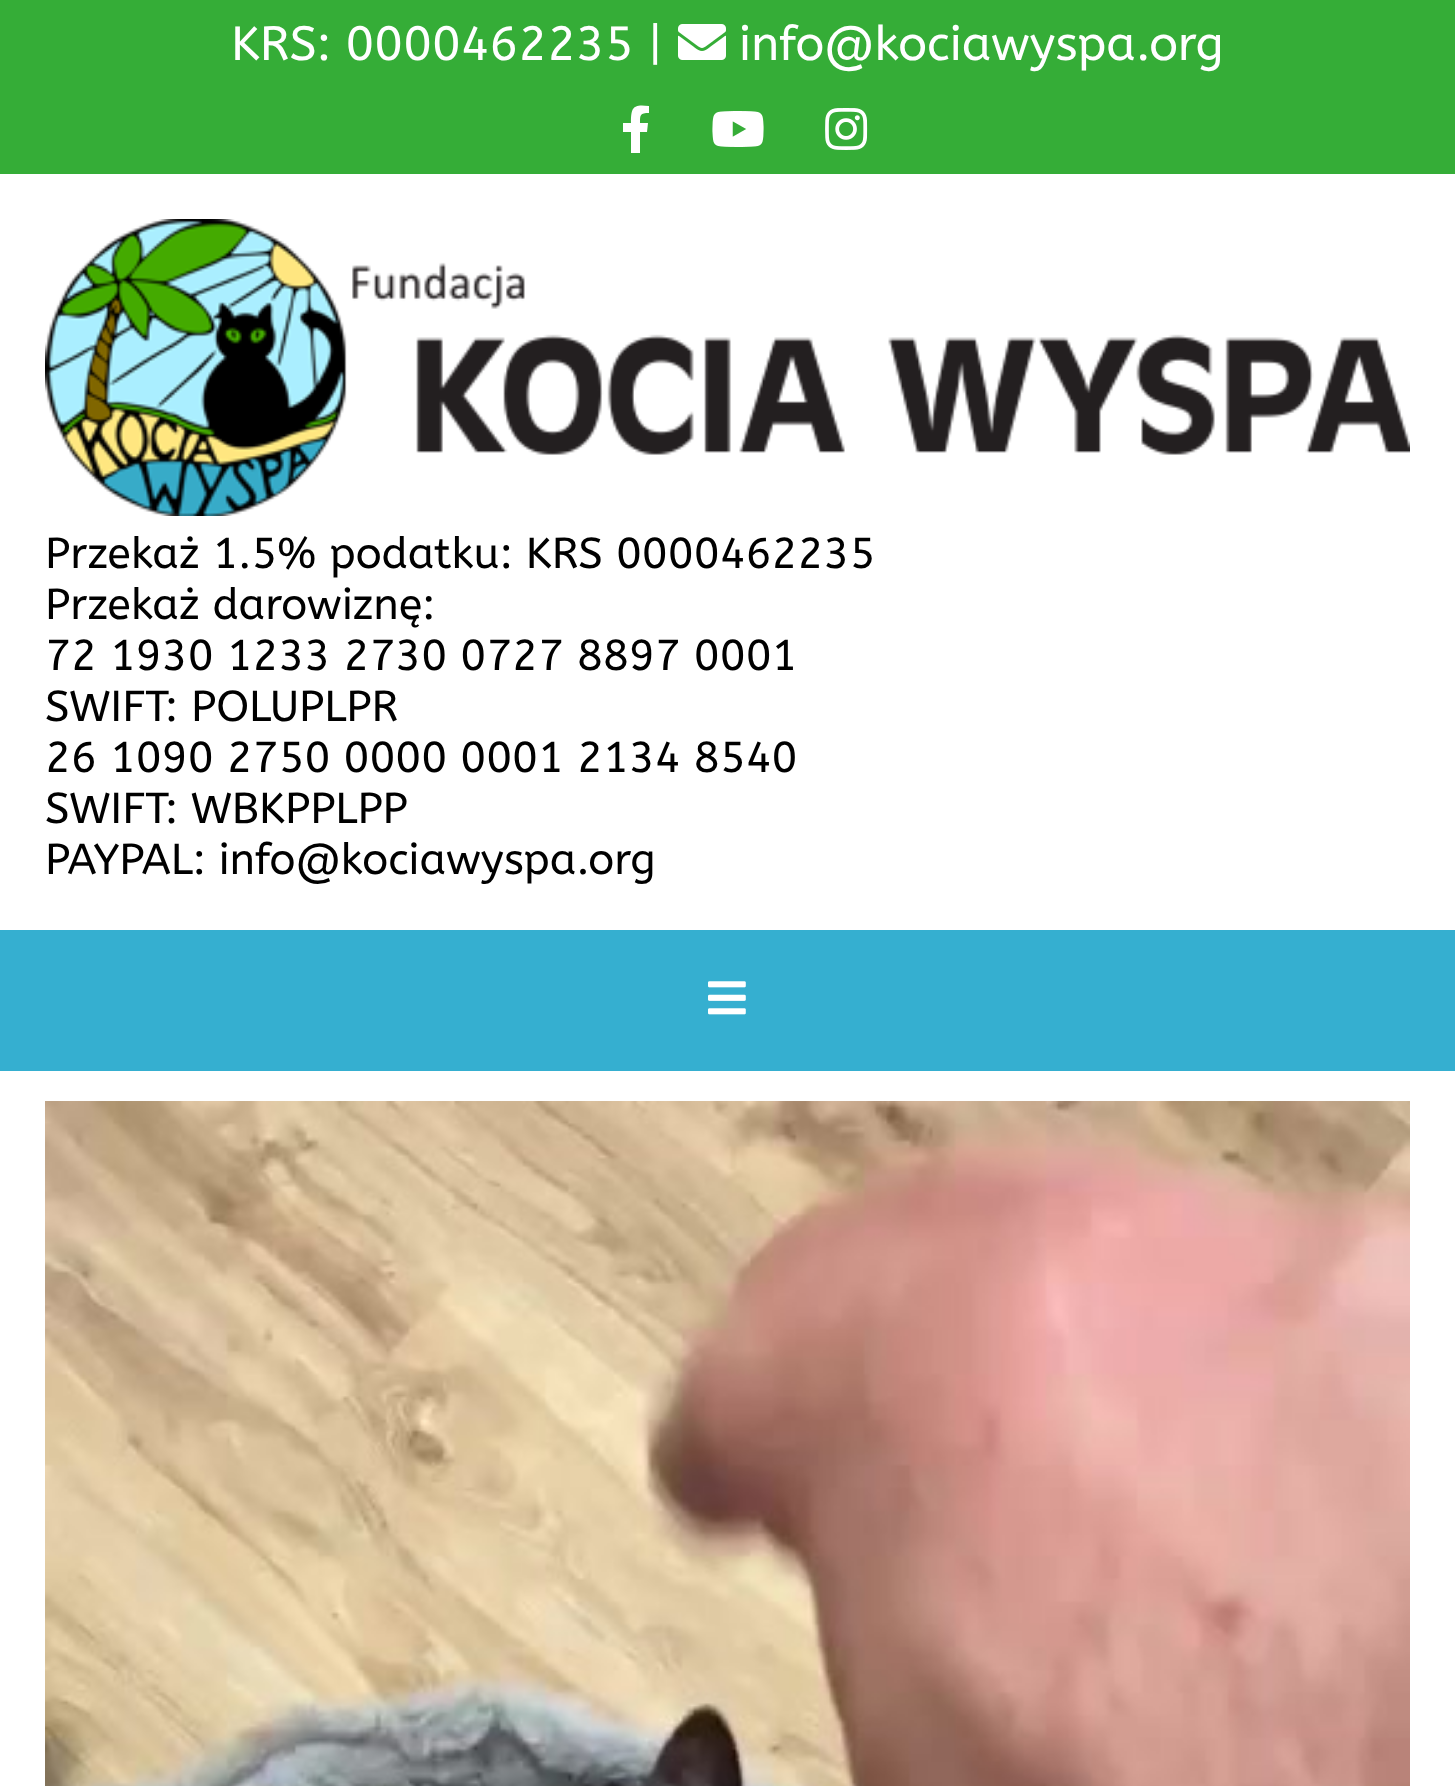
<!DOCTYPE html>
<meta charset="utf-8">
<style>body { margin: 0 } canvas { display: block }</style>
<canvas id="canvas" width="1455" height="1786"></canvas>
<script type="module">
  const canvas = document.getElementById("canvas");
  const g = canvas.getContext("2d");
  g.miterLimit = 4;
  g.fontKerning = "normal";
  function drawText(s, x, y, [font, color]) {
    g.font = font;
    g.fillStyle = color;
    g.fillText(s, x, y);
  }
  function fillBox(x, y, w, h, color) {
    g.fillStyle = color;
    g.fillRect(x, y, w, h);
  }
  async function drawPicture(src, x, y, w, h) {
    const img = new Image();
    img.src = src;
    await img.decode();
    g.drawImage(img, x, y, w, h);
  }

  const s1 = ["48px ABeeZee", "#FFFFFF"];
  const s2 = ["43.25px ABeeZee", "#000000"];

  fillBox(0, 0, 1455, 1786, "#FFFFFF");
  fillBox(0, 0, 1455, 174, "#35AD37");
  drawText("KRS: 0000462235 |", 231, 60, s1);
  await drawPicture("pic1.png", 678, 24, 48, 36);
  drawText("info@kociawyspa.org", 739, 60, s1);
  g.beginPath();
  g.moveTo(647, 132);
  g.lineTo(640, 132);
  g.lineTo(640, 153);
  g.lineTo(631, 153);
  g.lineTo(631, 132);
  g.lineTo(623, 132);
  g.lineTo(623, 123);
  g.lineTo(631, 123);
  g.bezierCurveTo(631, 107, 633, 104, 649, 106);
  g.lineTo(649, 113);
  g.bezierCurveTo(640, 113, 640, 115, 640, 123);
  g.lineTo(648, 123);
  g.closePath();
  g.fill();
  await drawPicture("pic2.png", 712, 111, 52, 36);
  await drawPicture("pic3.png", 825, 108, 43, 42);
  await drawPicture("pic4.png", 45, 219, 1365, 297);
  drawText("Przekaż 1.5% podatku: KRS 0000462235", 45, 568, s2);
  drawText("Przekaż darowiznę:", 45, 619, s2);
  drawText("72 1930 1233 2730 0727 8897 0001", 45, 670, s2);
  drawText("SWIFT: POLUPLPR", 45, 721, s2);
  drawText("26 1090 2750 0000 0001 2134 8540", 45, 772, s2);
  drawText("SWIFT: WBKPPLPP", 45, 823, s2);
  drawText("PAYPAL: info@kociawyspa.org", 45, 874, s2);
  fillBox(0, 930, 1455, 141, "#35AFD0");
  await drawPicture("pic5.png", 708, 981, 38, 34);
  await drawPicture("pic6.png", 45, 1101, 1365, 685);
</script>
